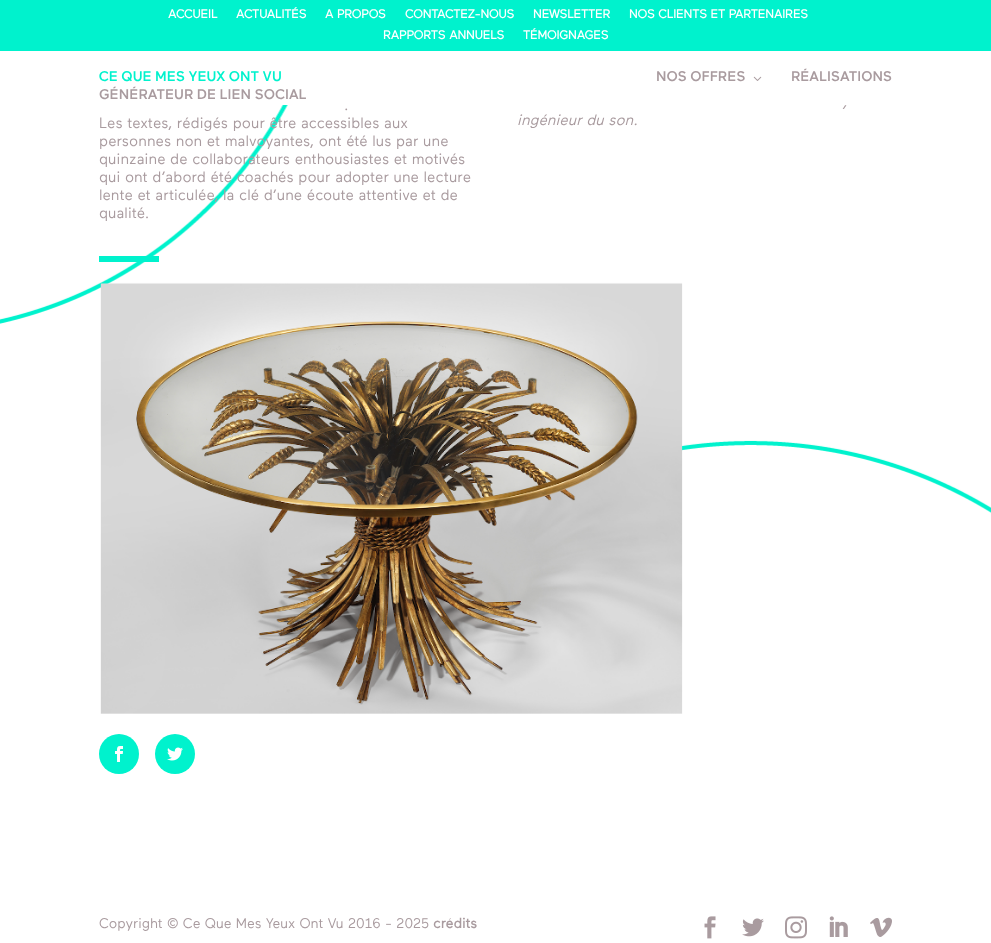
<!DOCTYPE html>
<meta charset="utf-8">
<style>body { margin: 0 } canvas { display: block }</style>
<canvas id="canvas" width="991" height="943"></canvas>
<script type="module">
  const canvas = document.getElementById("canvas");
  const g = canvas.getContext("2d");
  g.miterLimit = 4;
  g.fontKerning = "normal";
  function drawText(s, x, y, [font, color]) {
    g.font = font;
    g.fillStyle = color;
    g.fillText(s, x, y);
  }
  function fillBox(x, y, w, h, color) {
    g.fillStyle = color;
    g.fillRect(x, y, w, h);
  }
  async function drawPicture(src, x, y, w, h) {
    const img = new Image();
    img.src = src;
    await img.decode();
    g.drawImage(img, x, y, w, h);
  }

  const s1 = ["bold 12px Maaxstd", "#FFFFFF"];
  const s2 = ["500 14px Maax std", "#00F2CD"];
  const s3 = ["500 14px Maax std", "#A99B9F"];
  const s4 = ["15px Maaxstd", "#A99B9F"];
  const s5 = ["italic 15px Maaxstd", "#A99B9F"];
  const s6 = ["14px Maaxstd", "#A99B9F"];
  const s7 = ["bold 14px Maaxstd", "#A99B9F"];

  fillBox(0, 0, 991, 943, "#FFFFFF");
  await drawPicture("pic1.png", 0, 105, 991, 571);
  fillBox(0, 0, 991, 51, "#00F2CD");
  drawText("ACCUEIL", 168, 18, s1);
  drawText("ACTUALITÉS", 236, 18, s1);
  drawText("A PROPOS", 325, 18, s1);
  drawText("CONTACTEZ-NOUS", 405, 18, s1);
  drawText("NEWSLETTER", 533, 18, s1);
  drawText("NOS CLIENTS ET PARTENAIRES", 629, 18, s1);
  drawText("RAPPORTS ANNUELS", 383, 39, s1);
  drawText("TÉMOIGNAGES", 523, 39, s1);
  drawText("CE QUE MES YEUX ONT VU", 99, 81, s2);
  drawText("GÉNÉRATEUR DE LIEN SOCIAL", 99, 99, s3);
  drawText("NOS OFFRES", 656, 81, s3);
  await drawPicture("pic2.png", 753, 76, 9, 5);
  drawText("RÉALISATIONS", 791, 81, s3);
  drawText(".", 344, 110, s4);
  drawText("Les textes, rédigés pour être accessibles aux", 99, 128, s4);
  drawText("personnes non et malvoyantes, ont été lus par une", 99, 146, s4);
  drawText("quinzaine de collaborateurs enthousiastes et motivés", 99, 164, s4);
  drawText("qui ont d’abord été coachés pour adopter une lecture", 99, 182, s4);
  drawText("lente et articulée, la clé d’une écoute attentive et de", 99, 200, s4);
  drawText("qualité.", 99, 218, s4);
  drawText(",", 843, 107, s5);
  drawText("ingénieur du son.", 517, 125, s5);
  fillBox(99, 256, 60, 6, "#00F2CD");
  await drawPicture("pic3.png", 100, 282, 583, 432);
  g.beginPath();
  g.arc(119, 754, 20, 0, Math.PI * 2);
  g.fill();
  await drawPicture("pic4.png", 115, 746, 8, 16);
  g.beginPath();
  g.arc(175, 754, 20, 0, Math.PI * 2);
  g.fill();
  await drawPicture("pic5.png", 167, 747, 16, 14);
  drawText("Copyright © Ce Que Mes Yeux Ont Vu 2016 - 2025", 99, 928, s6);
  drawText("crédits", 433, 928, s7);
  await drawPicture("pic6.png", 704, 916, 12, 23);
  await drawPicture("pic7.png", 742, 918, 22, 19);
  await drawPicture("pic8.png", 785, 916, 22, 23);
  await drawPicture("pic9.png", 829, 916, 19, 21);
  await drawPicture("pic10.png", 870, 917, 22, 20);
</script>
